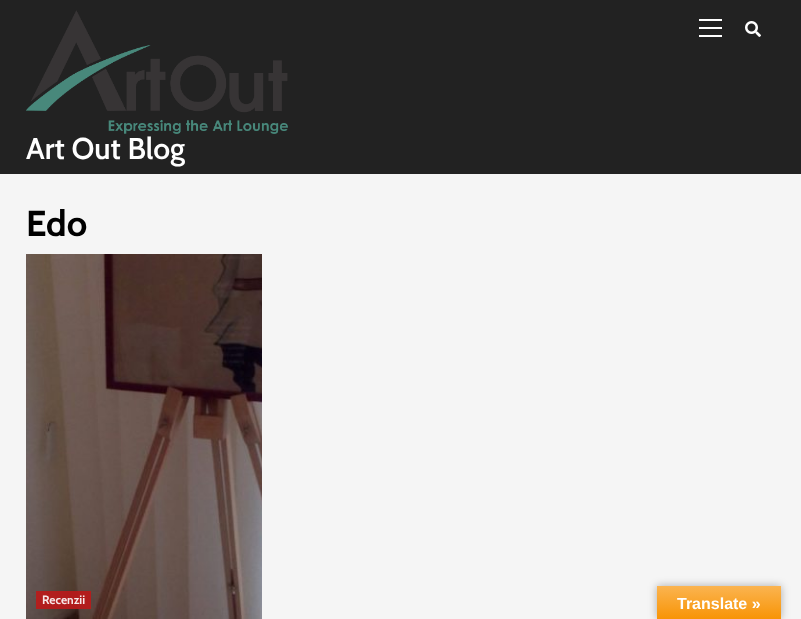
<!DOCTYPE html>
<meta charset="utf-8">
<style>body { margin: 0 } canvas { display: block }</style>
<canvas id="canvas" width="801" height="619"></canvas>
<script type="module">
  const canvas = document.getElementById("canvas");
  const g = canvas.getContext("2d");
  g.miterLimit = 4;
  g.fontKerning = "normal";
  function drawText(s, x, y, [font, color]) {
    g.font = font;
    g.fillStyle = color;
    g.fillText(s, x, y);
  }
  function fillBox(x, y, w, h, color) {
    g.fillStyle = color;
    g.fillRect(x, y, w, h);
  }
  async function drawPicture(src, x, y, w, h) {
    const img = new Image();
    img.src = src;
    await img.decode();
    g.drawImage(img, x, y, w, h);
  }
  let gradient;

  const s1 = ["600 30px Cabin", "#FFFFFF"];
  const s2 = ["bold 36px Cabin", "#000000"];
  const s3 = ["bold 12px Cabin", "#F7E8E8"];
  const s4 = ["bold 16px Liberation Sans", "#FFFFFF"];

  fillBox(0, 0, 801, 619, "#F5F5F5");
  fillBox(0, 0, 801, 174, "#222222");
  fillBox(699, 27, 23, 2, "#FFFFFF");
  fillBox(699, 19, 23, 2, "#FFFFFF");
  fillBox(699, 35, 23, 2, "#FFFFFF");
  await drawPicture("pic1.png", 745, 21, 16, 16);
  await drawPicture("pic2.png", 26, 10, 262, 124);
  drawText("Art Out Blog", 26, 159, s1);
  drawText("Edo", 26, 236, s2);
  await drawPicture("pic3.png", 26, 254, 236, 365);
  fillBox(36, 591, 55, 18, "rgba(187, 25, 25, 0.9)");
  drawText("Recenzii", 42, 604, s3);
  g.fillStyle = "rgba(0, 0, 0, 0.3)";
  g.filter = "blur(4.5px)";
  g.beginPath();
  g.rect(657, 586, 124, 33);
  g.fill();
  g.filter = "none";
  gradient = g.createLinearGradient(719, 586, 719, 619);
  gradient.addColorStop(0, "#FBB450");
  gradient.addColorStop(1, "#F89406");
  g.fillStyle = gradient;
  g.fillRect(657, 586, 124, 33);
  drawText("Translate »", 677, 609, s4);
</script>
